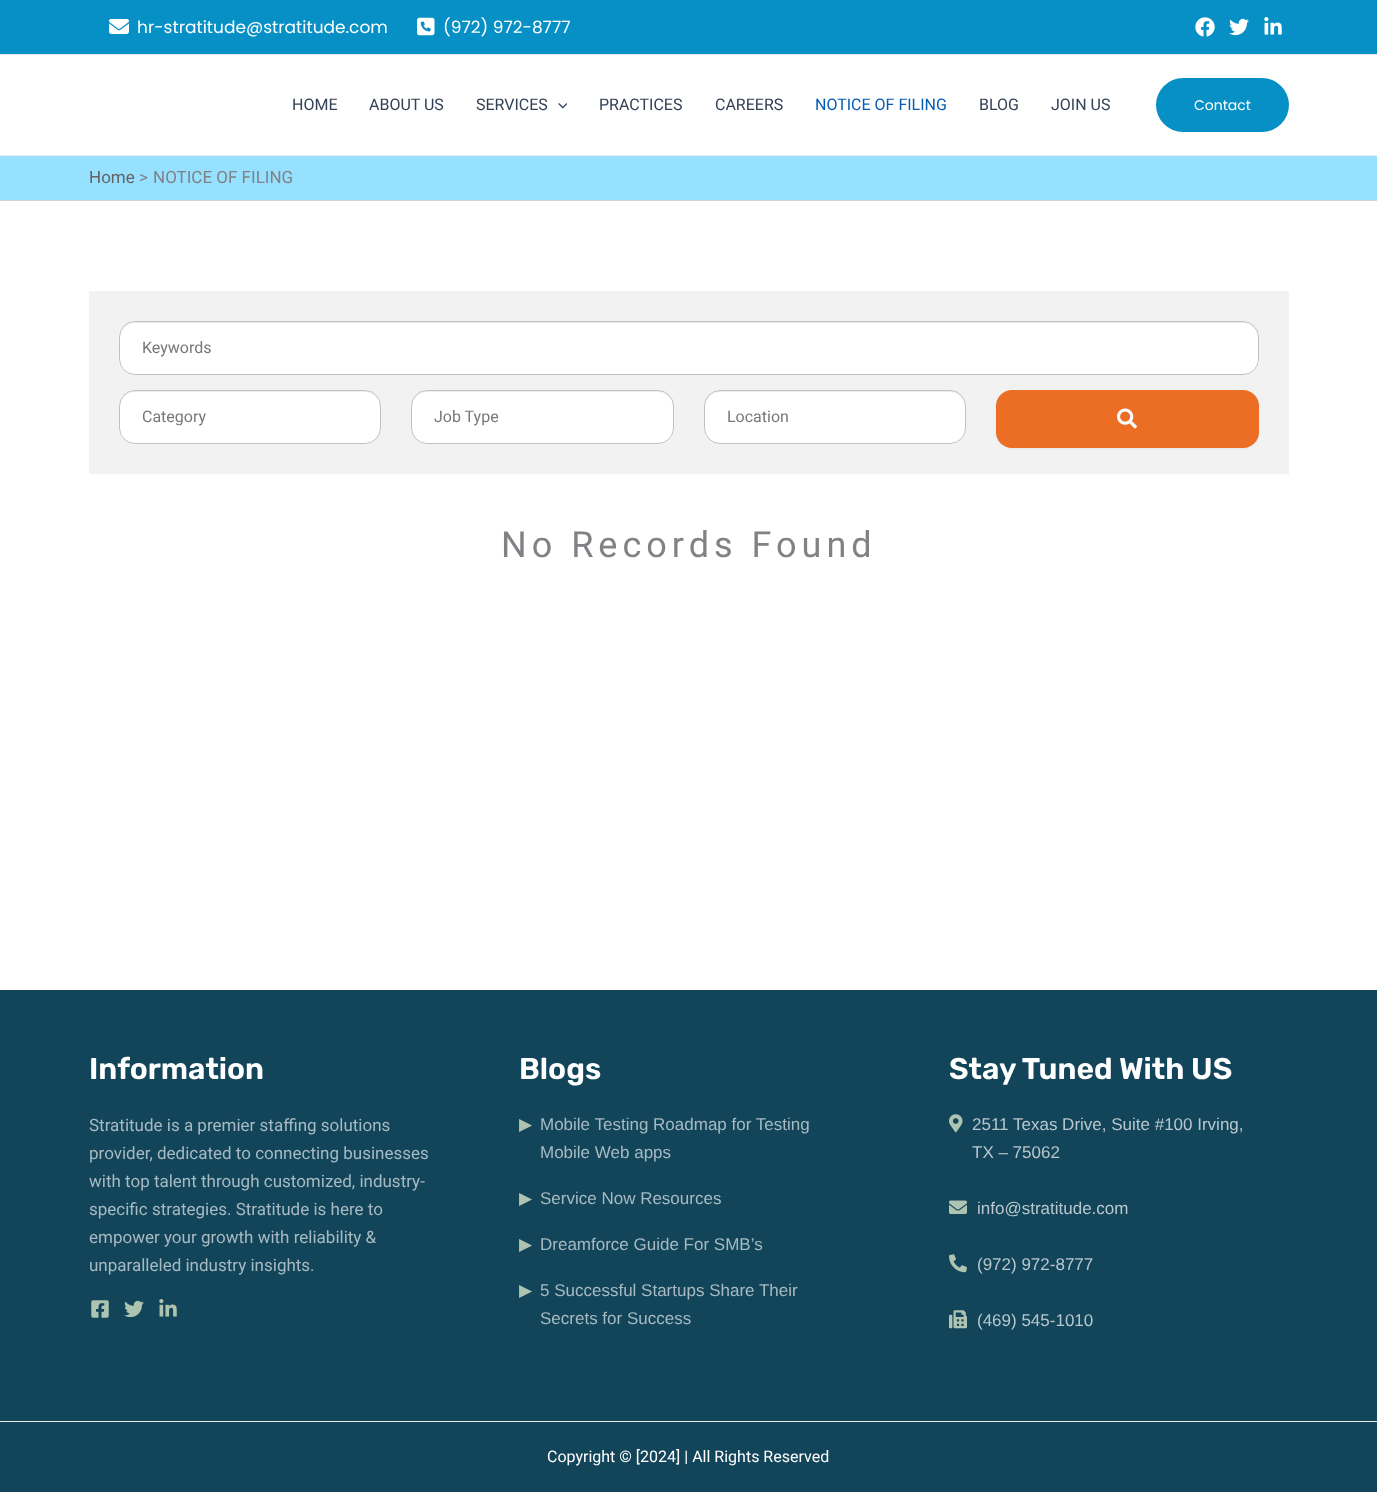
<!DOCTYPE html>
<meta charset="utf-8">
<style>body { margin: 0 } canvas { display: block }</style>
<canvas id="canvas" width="1377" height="1492"></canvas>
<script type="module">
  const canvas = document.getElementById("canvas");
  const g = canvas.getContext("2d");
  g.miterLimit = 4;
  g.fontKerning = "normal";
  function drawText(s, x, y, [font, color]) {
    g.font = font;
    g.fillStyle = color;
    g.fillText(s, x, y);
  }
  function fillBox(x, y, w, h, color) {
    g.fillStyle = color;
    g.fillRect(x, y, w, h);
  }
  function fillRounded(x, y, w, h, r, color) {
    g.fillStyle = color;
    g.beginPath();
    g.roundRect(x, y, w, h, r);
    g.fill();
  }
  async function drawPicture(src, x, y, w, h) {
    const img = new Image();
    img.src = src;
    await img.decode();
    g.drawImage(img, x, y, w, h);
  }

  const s1 = ["17px Poppins", "#FFFFFF"];
  const s2 = ["16px Roboto", "#334155"];
  const s3 = ["16px Roboto", "#045CB4"];
  const s4 = ["14px Poppins", "#FFFFFF"];
  const s5 = ["17px Roboto", "#636363"];
  const s6 = ["17px Roboto", "#808285"];
  const s7 = ["16px Roboto", "#777777"];
  const s8 = ["36px Roboto", "#808285"];
  const s9 = ["600 30px Rubik", "#FFFFFF"];
  const s10 = ["17px Roboto", "#A7BAC2"];
  const s11 = ["17px DejaVu Sans", "#AEC3B0"];
  const s12 = ["17px Liberation Sans", "#A7BAC2"];
  const s13 = ["17px Liberation Sans", "#B8C7CD"];
  const s14 = ["16px Roboto", "#FFFFFF"];

  fillBox(0, 0, 1377, 1492, "#FFFFFF");
  fillBox(0, 0, 1377, 54, "#0790C5");
  fillBox(0, 54, 1377, 1, "#EAEAEA");
  await drawPicture("pic1.png", 109, 19, 20, 15);
  drawText("hr-stratitude@stratitude.com", 137, 33, s1);
  await drawPicture("pic2.png", 417, 17, 18, 19);
  drawText("(972) 972-8777", 443, 33, s1);
  await drawPicture("pic3.png", 1195, 17, 20, 20);
  await drawPicture("pic4.png", 1229, 18, 20, 18);
  await drawPicture("pic5.png", 1264, 17, 18, 18);
  fillBox(0, 155, 1377, 1, "#EAEAEA");
  drawText("HOME", 292, 110, s2);
  drawText("ABOUT US", 369, 110, s2);
  drawText("SERVICES", 476, 110, s2);
  await drawPicture("pic6.png", 558, 103, 9, 6);
  drawText("PRACTICES", 599, 110, s2);
  drawText("CAREERS", 715, 110, s2);
  drawText("NOTICE OF FILING", 815, 110, s3);
  drawText("BLOG", 979, 110, s2);
  drawText("JOIN US", 1051, 110, s2);
  fillRounded(1156, 78, 133, 54, 27, "#0790C5");
  drawText("Contact", 1194, 110, s4);
  fillBox(0, 156, 1377, 44, "#95E1FF");
  fillBox(0, 200, 1377, 1, "#D1D5DB");
  drawText("Home", 89, 183, s5);
  drawText(">", 139, 183, s6);
  drawText("NOTICE OF FILING", 153, 183, s6);
  fillBox(89, 291, 1200, 183, "#F2F2F2");
  fillRounded(119, 321, 1140, 54, 16, "#FFFFFF");
  g.fillStyle = "#ECECEC";
  g.beginPath();
  g.moveTo(135, 323);
  g.lineTo(1243, 323);
  g.bezierCurveTo(1251, 323, 1258, 330, 1258, 338);
  g.lineTo(1258, 337);
  g.bezierCurveTo(1258, 329, 1251, 322, 1243, 322);
  g.lineTo(135, 322);
  g.bezierCurveTo(127, 322, 120, 329, 120, 337);
  g.lineTo(120, 338);
  g.bezierCurveTo(120, 330, 127, 323, 135, 323);
  g.closePath();
  g.fill();
  g.beginPath();
  g.roundRect(119.5, 321.5, 1139, 53, 15.5);
  g.strokeStyle = "#C1C1C1";
  g.stroke();
  drawText("Keywords", 142, 353, s7);
  fillRounded(119, 390, 262, 54, 16, "#FFFFFF");
  g.fillStyle = "#ECECEC";
  g.beginPath();
  g.moveTo(135, 392);
  g.lineTo(365, 392);
  g.bezierCurveTo(373, 392, 380, 399, 380, 407);
  g.lineTo(380, 406);
  g.bezierCurveTo(380, 398, 373, 391, 365, 391);
  g.lineTo(135, 391);
  g.bezierCurveTo(127, 391, 120, 398, 120, 406);
  g.lineTo(120, 407);
  g.bezierCurveTo(120, 399, 127, 392, 135, 392);
  g.closePath();
  g.fill();
  g.beginPath();
  g.roundRect(119.5, 390.5, 261, 53, 15.5);
  g.stroke();
  drawText("Category", 142, 422, s7);
  fillRounded(411, 390, 263, 54, 16, "#FFFFFF");
  g.fillStyle = "#ECECEC";
  g.beginPath();
  g.moveTo(427, 392);
  g.lineTo(658, 392);
  g.bezierCurveTo(666, 392, 673, 399, 673, 407);
  g.lineTo(673, 406);
  g.bezierCurveTo(673, 398, 666, 391, 658, 391);
  g.lineTo(427, 391);
  g.bezierCurveTo(419, 391, 412, 398, 412, 406);
  g.lineTo(412, 407);
  g.bezierCurveTo(412, 399, 419, 392, 427, 392);
  g.closePath();
  g.fill();
  g.beginPath();
  g.roundRect(411.5, 390.5, 262, 53, 15.5);
  g.stroke();
  drawText("Job Type", 434, 422, s7);
  fillRounded(704, 390, 262, 54, 16, "#FFFFFF");
  g.fillStyle = "#ECECEC";
  g.beginPath();
  g.moveTo(720, 392);
  g.lineTo(950, 392);
  g.bezierCurveTo(958, 392, 965, 399, 965, 407);
  g.lineTo(965, 406);
  g.bezierCurveTo(965, 398, 958, 391, 950, 391);
  g.lineTo(720, 391);
  g.bezierCurveTo(712, 391, 705, 398, 705, 406);
  g.lineTo(705, 407);
  g.bezierCurveTo(705, 399, 712, 392, 720, 392);
  g.closePath();
  g.fill();
  g.beginPath();
  g.roundRect(704.5, 390.5, 261, 53, 15.5);
  g.stroke();
  drawText("Location", 727, 422, s7);
  g.fillStyle = "rgba(0, 0, 0, 0.05)";
  g.filter = "blur(1px)";
  g.beginPath();
  g.roundRect(996, 391, 263, 58, 16);
  g.fill();
  g.filter = "none";
  fillRounded(996, 390, 263, 58, 16, "#EC6D24");
  await drawPicture("pic7.png", 1117, 408, 20, 21);
  g.letterSpacing = "5px";
  drawText("No Records Found", 501, 557, s8);
  fillBox(0, 990, 1377, 431, "#124559");
  g.letterSpacing = "0px";
  drawText("Information", 89, 1079, s9);
  drawText("Stratitude is a premier staffing solutions", 89, 1131, s10);
  drawText("provider, dedicated to connecting businesses", 89, 1159, s10);
  drawText("with top talent through customized, industry-", 89, 1187, s10);
  drawText("specific strategies. Stratitude is here to", 89, 1215, s10);
  drawText("empower your growth with reliability &", 89, 1243, s10);
  drawText("unparalleled industry insights.", 89, 1271, s10);
  await drawPicture("pic8.png", 91, 1300, 18, 18);
  await drawPicture("pic9.png", 124, 1300, 20, 18);
  await drawPicture("pic10.png", 159, 1299, 18, 18);
  drawText("Blogs", 519, 1079, s9);
  drawText("▶", 519, 1130, s11);
  drawText("Mobile Testing Roadmap for Testing", 540, 1130, s12);
  drawText("Mobile Web apps", 540, 1158, s12);
  drawText("▶", 519, 1204, s11);
  drawText("Service Now Resources", 540, 1204, s12);
  drawText("▶", 519, 1250, s11);
  drawText("Dreamforce Guide For SMB’s", 540, 1250, s12);
  drawText("▶", 519, 1296, s11);
  drawText("5 Successful Startups Share Their", 540, 1296, s12);
  drawText("Secrets for Success", 540, 1324, s12);
  drawText("Stay Tuned With US", 949, 1079, s9);
  await drawPicture("pic11.png", 949, 1114, 14, 19);
  drawText("2511 Texas Drive, Suite #100 Irving,", 972, 1130, s13);
  drawText("TX – 75062", 972, 1158, s13);
  await drawPicture("pic12.png", 949, 1200, 18, 14);
  drawText("info@stratitude.com", 977, 1214, s13);
  await drawPicture("pic13.png", 949, 1254, 18, 19);
  drawText("(972) 972-8777", 977, 1270, s13);
  await drawPicture("pic14.png", 949, 1310, 18, 19);
  drawText("(469) 545-1010", 977, 1326, s13);
  fillBox(0, 1422, 1377, 70, "#124559");
  fillBox(0, 1421, 1377, 1, "#EAEAEA");
  drawText("Copyright © [2024] | All Rights Reserved", 547, 1462, s14);
</script>
